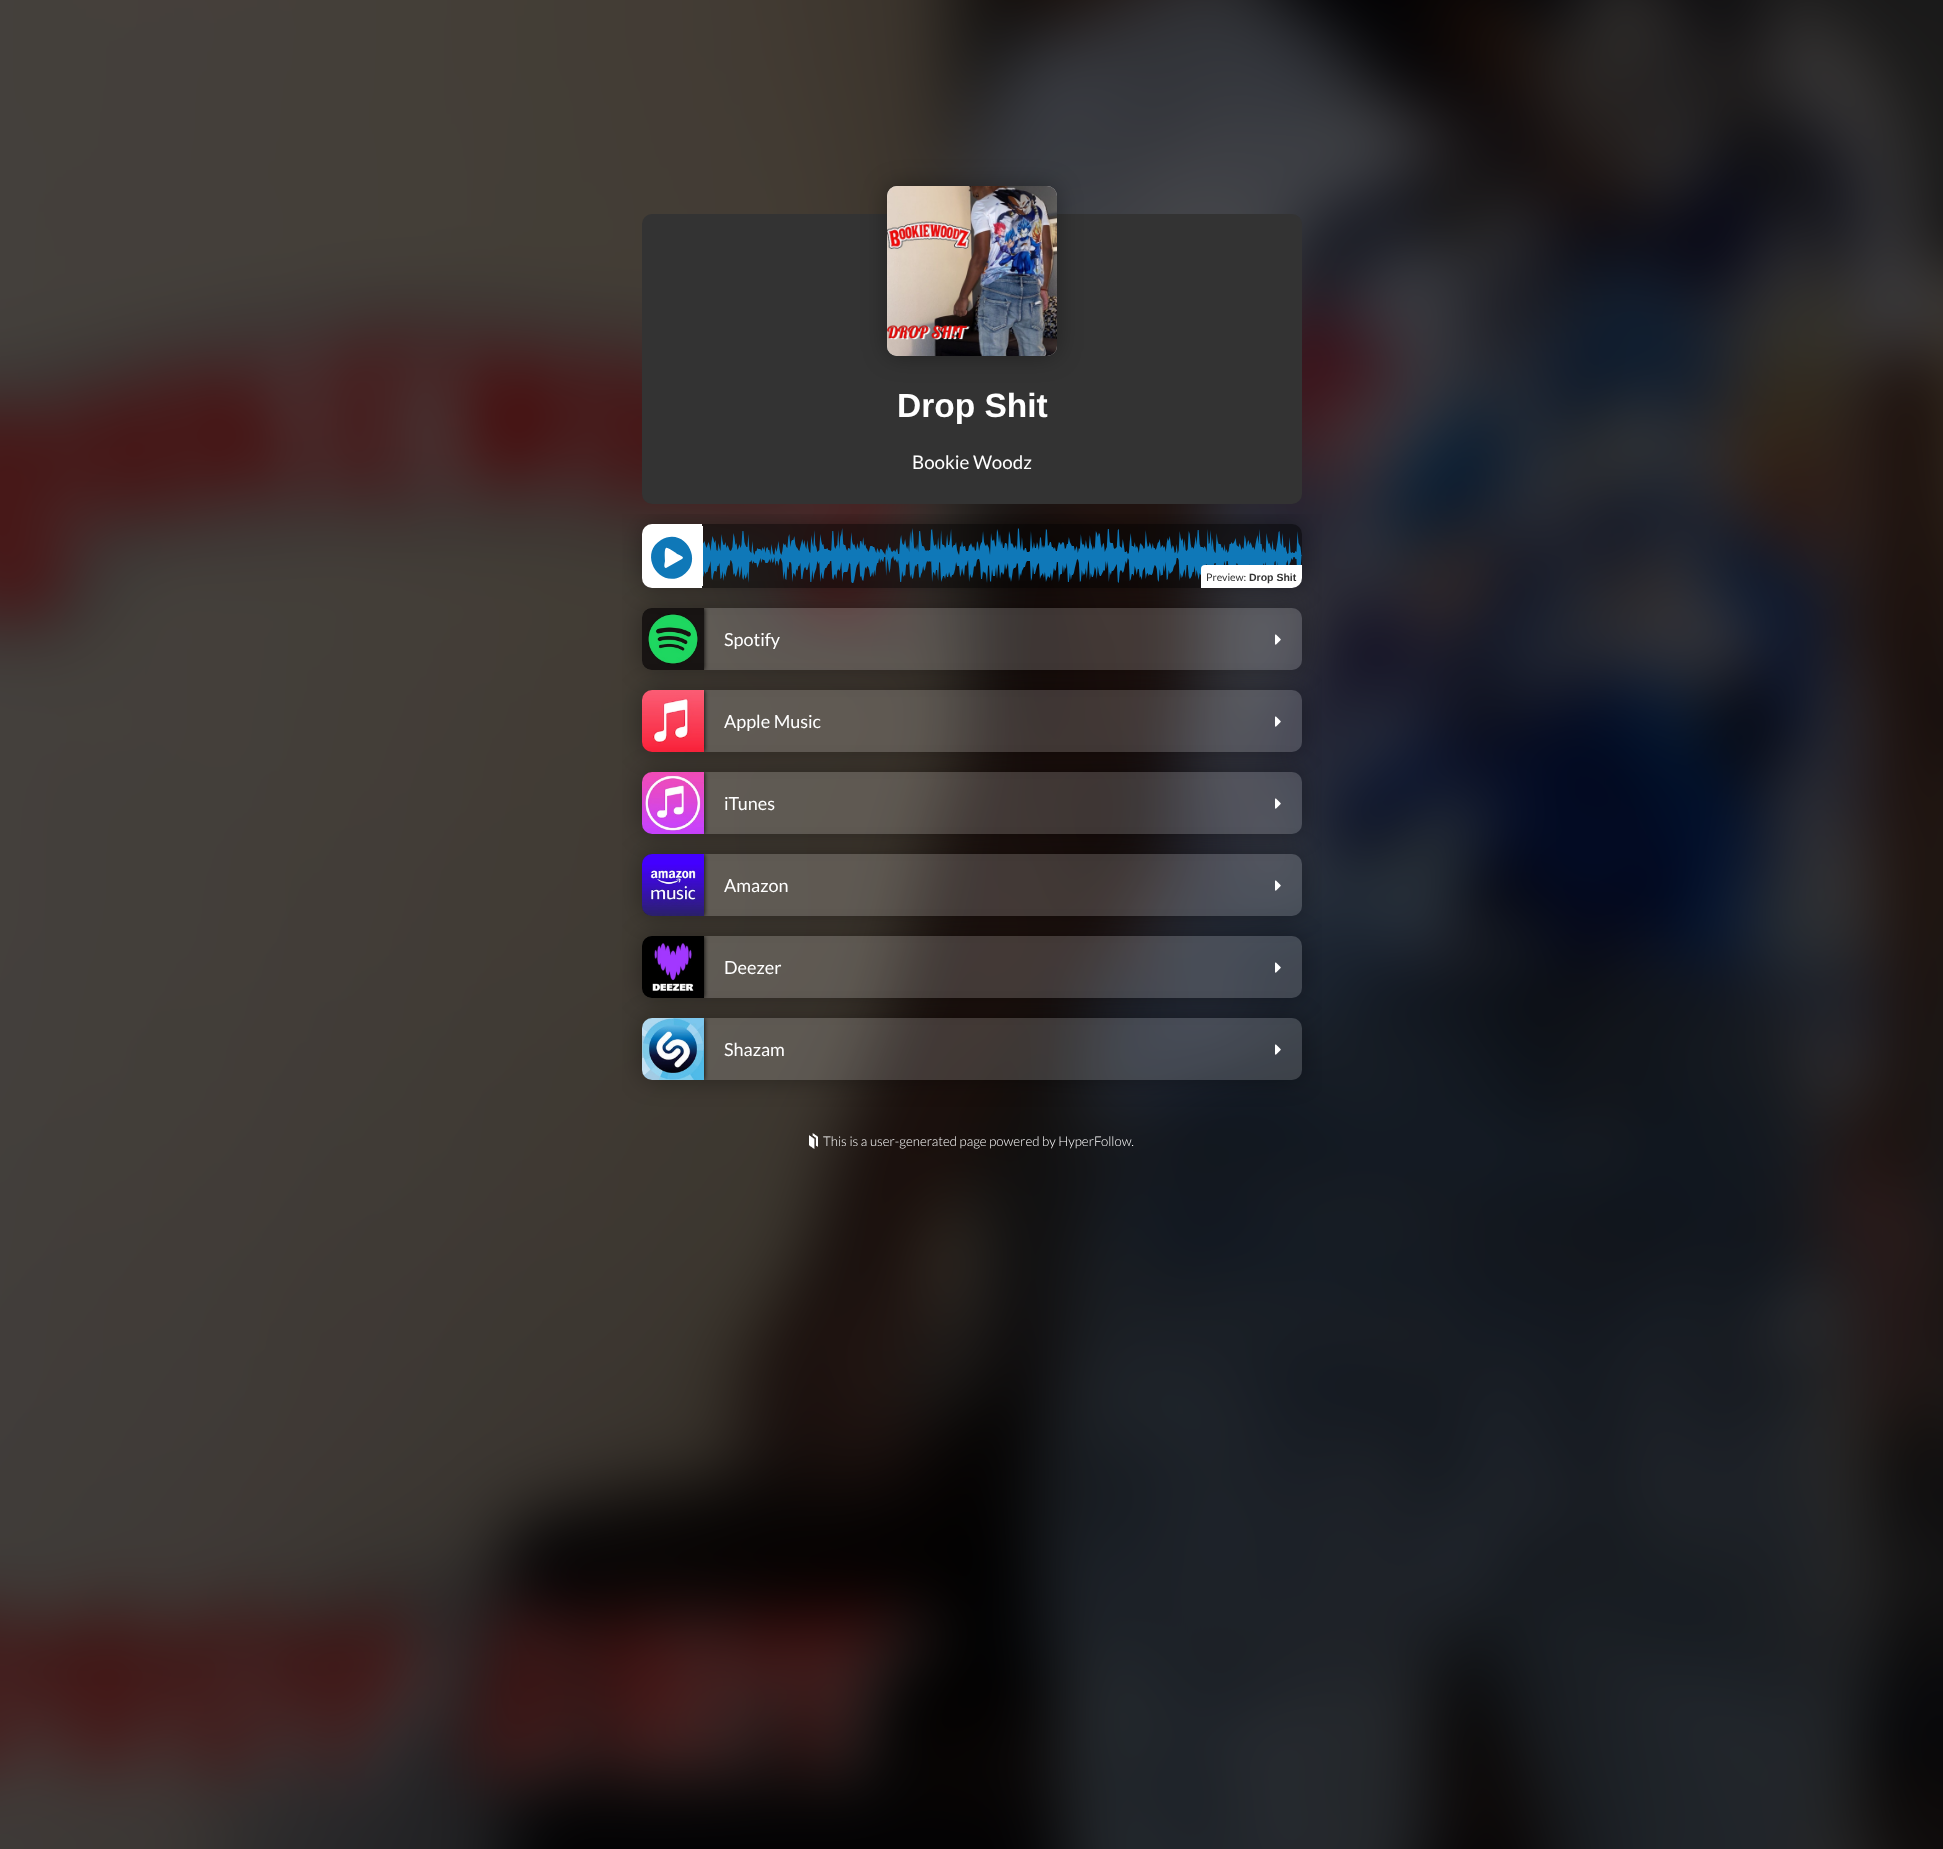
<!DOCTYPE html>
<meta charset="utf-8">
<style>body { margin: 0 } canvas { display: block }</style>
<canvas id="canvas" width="1943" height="1849"></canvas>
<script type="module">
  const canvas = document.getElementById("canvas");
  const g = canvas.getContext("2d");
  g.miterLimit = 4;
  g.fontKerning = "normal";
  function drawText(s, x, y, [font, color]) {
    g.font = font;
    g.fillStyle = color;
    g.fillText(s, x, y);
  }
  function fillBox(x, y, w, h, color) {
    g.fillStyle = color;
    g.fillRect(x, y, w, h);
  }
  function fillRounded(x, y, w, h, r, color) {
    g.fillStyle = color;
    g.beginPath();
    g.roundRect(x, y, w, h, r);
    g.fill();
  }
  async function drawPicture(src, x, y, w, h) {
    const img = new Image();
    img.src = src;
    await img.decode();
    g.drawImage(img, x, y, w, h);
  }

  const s1 = ["bold 33.5px Liberation Sans", "#FFFFFF"];
  const s2 = ["18.75px Lato", "#FFFFFF"];
  const s3 = ["10.5px Lato", "#333333"];
  const s4 = ["bold 10.5px Liberation Sans", "#333333"];
  const s5 = ["18px Lato", "#FFFFFF"];
  const s6 = ["300 13.3px Lato", "#FFFFFF"];

  fillBox(0, 0, 1943, 1849, "#000000");
  await drawPicture("pic1.png", 0, 0, 1943, 1849);
  fillRounded(642, 214, 660, 290, 10, "#333333");
  g.fillStyle = "rgba(0, 0, 0, 0.35)";
  g.filter = "blur(12.5px)";
  g.beginPath();
  g.roundRect(887, 186, 170, 170, 10);
  g.fill();
  g.filter = "none";
  fillRounded(887, 186, 170, 170, 10, "#CCCCCC");
  await drawPicture("pic2.png", 887, 186, 170, 170);
  drawText("Drop Shit", 897, 417, s1);
  drawText("Bookie Woodz", 912, 469, s2);
  g.save();
  g.beginPath();
  g.rect(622, 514, 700, 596);
  g.clip();
  g.beginPath();
  g.moveTo(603, 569);
  g.lineTo(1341, 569);
  g.lineTo(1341, 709);
  g.lineTo(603, 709);
  g.closePath();
  g.moveTo(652, 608);
  g.lineTo(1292, 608);
  g.bezierCurveTo(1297.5, 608, 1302, 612.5, 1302, 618);
  g.lineTo(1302, 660);
  g.bezierCurveTo(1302, 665.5, 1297.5, 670, 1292, 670);
  g.lineTo(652, 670);
  g.bezierCurveTo(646.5, 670, 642, 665.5, 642, 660);
  g.lineTo(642, 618);
  g.bezierCurveTo(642, 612.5, 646.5, 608, 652, 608);
  g.closePath();
  g.clip("evenodd");
  g.fillStyle = "rgba(0, 0, 0, 0.35)";
  g.filter = "blur(12.5px)";
  g.beginPath();
  g.roundRect(642, 608, 660, 62, 10);
  g.fill();
  g.filter = "none";
  g.restore();
  fillRounded(642, 608, 660, 62, 10, "rgba(255, 255, 255, 0.17)");
  g.save();
  g.beginPath();
  g.roundRect(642, 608, 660, 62, 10);
  g.clip();
  g.fillStyle = "#000000";
  g.filter = "blur(2.5px)";
  g.beginPath();
  g.rect(642, 608, 62, 62);
  g.fill();
  g.filter = "none";
  g.restore();
  await drawPicture("pic4.png", 642, 608, 62, 62);
  g.save();
  g.beginPath();
  g.rect(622, 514, 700, 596);
  g.clip();
  g.beginPath();
  g.moveTo(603, 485);
  g.lineTo(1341, 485);
  g.lineTo(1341, 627);
  g.lineTo(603, 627);
  g.closePath();
  g.moveTo(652, 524);
  g.lineTo(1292, 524);
  g.bezierCurveTo(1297.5, 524, 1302, 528.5, 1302, 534);
  g.lineTo(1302, 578);
  g.bezierCurveTo(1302, 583.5, 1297.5, 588, 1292, 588);
  g.lineTo(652, 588);
  g.bezierCurveTo(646.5, 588, 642, 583.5, 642, 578);
  g.lineTo(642, 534);
  g.bezierCurveTo(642, 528.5, 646.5, 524, 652, 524);
  g.closePath();
  g.clip("evenodd");
  g.fillStyle = "rgba(0, 0, 0, 0.35)";
  g.filter = "blur(12.5px)";
  g.beginPath();
  g.roundRect(642, 524, 660, 64, 10);
  g.fill();
  g.filter = "none";
  g.restore();
  g.fillStyle = "#FFFFFF";
  g.beginPath();
  g.roundRect(642, 524, 60, 64, [10, 0, 0, 10]);
  g.fill();
  g.fillStyle = "#0F78B8";
  g.beginPath();
  g.moveTo(661, 540);
  g.bezierCurveTo(685, 526, 705, 562, 682, 576);
  g.bezierCurveTo(659, 589, 638, 554, 661, 540);
  g.closePath();
  g.moveTo(682, 559);
  g.bezierCurveTo(686, 557, 677, 554, 677, 554);
  g.bezierCurveTo(675, 552, 667, 547, 666, 548);
  g.bezierCurveTo(664, 549, 665, 559, 665, 561);
  g.bezierCurveTo(665, 562, 663, 568, 666, 568);
  g.closePath();
  g.fill();
  g.fillStyle = "rgba(0, 0, 0, 0.5)";
  g.beginPath();
  g.roundRect(702, 524, 600, 64, [0, 10, 10, 0]);
  g.fill();
  fillBox(702, 526, 1, 60, "#FFFFFF");
  await drawPicture("pic3.png", 703, 528, 599, 55);
  g.beginPath();
  g.roundRect(1201, 565, 101, 23, [4, 0, 10, 0]);
  g.fill();
  drawText("Preview:", 1206, 581, s3);
  drawText("Drop Shit", 1249, 581, s4);
  drawText("Spotify", 724, 646, s5);
  await drawPicture("pic5.png", 1275, 634, 6, 11);
  g.save();
  g.beginPath();
  g.rect(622, 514, 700, 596);
  g.clip();
  g.beginPath();
  g.moveTo(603, 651);
  g.lineTo(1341, 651);
  g.lineTo(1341, 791);
  g.lineTo(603, 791);
  g.closePath();
  g.moveTo(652, 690);
  g.lineTo(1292, 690);
  g.bezierCurveTo(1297.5, 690, 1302, 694.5, 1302, 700);
  g.lineTo(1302, 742);
  g.bezierCurveTo(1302, 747.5, 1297.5, 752, 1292, 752);
  g.lineTo(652, 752);
  g.bezierCurveTo(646.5, 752, 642, 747.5, 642, 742);
  g.lineTo(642, 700);
  g.bezierCurveTo(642, 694.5, 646.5, 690, 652, 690);
  g.closePath();
  g.clip("evenodd");
  g.fillStyle = "rgba(0, 0, 0, 0.35)";
  g.filter = "blur(12.5px)";
  g.beginPath();
  g.roundRect(642, 690, 660, 62, 10);
  g.fill();
  g.filter = "none";
  g.restore();
  fillRounded(642, 690, 660, 62, 10, "rgba(255, 255, 255, 0.17)");
  g.save();
  g.beginPath();
  g.roundRect(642, 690, 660, 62, 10);
  g.clip();
  g.fillStyle = "#000000";
  g.filter = "blur(2.5px)";
  g.beginPath();
  g.rect(642, 690, 62, 62);
  g.fill();
  g.filter = "none";
  g.restore();
  await drawPicture("pic6.png", 642, 690, 62, 62);
  drawText("Apple Music", 724, 728, s5);
  await drawPicture("pic7.png", 1275, 716, 6, 11);
  g.save();
  g.beginPath();
  g.rect(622, 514, 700, 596);
  g.clip();
  g.beginPath();
  g.moveTo(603, 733);
  g.lineTo(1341, 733);
  g.lineTo(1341, 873);
  g.lineTo(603, 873);
  g.closePath();
  g.moveTo(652, 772);
  g.lineTo(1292, 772);
  g.bezierCurveTo(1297.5, 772, 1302, 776.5, 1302, 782);
  g.lineTo(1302, 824);
  g.bezierCurveTo(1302, 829.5, 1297.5, 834, 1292, 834);
  g.lineTo(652, 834);
  g.bezierCurveTo(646.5, 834, 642, 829.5, 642, 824);
  g.lineTo(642, 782);
  g.bezierCurveTo(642, 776.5, 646.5, 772, 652, 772);
  g.closePath();
  g.clip("evenodd");
  g.fillStyle = "rgba(0, 0, 0, 0.35)";
  g.filter = "blur(12.5px)";
  g.beginPath();
  g.roundRect(642, 772, 660, 62, 10);
  g.fill();
  g.filter = "none";
  g.restore();
  fillRounded(642, 772, 660, 62, 10, "rgba(255, 255, 255, 0.17)");
  g.save();
  g.beginPath();
  g.roundRect(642, 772, 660, 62, 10);
  g.clip();
  g.fillStyle = "#000000";
  g.filter = "blur(2.5px)";
  g.beginPath();
  g.rect(642, 772, 62, 62);
  g.fill();
  g.filter = "none";
  g.restore();
  await drawPicture("pic8.png", 642, 772, 62, 62);
  drawText("iTunes", 724, 810, s5);
  await drawPicture("pic9.png", 1275, 798, 6, 11);
  g.save();
  g.beginPath();
  g.rect(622, 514, 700, 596);
  g.clip();
  g.beginPath();
  g.moveTo(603, 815);
  g.lineTo(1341, 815);
  g.lineTo(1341, 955);
  g.lineTo(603, 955);
  g.closePath();
  g.moveTo(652, 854);
  g.lineTo(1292, 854);
  g.bezierCurveTo(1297.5, 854, 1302, 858.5, 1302, 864);
  g.lineTo(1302, 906);
  g.bezierCurveTo(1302, 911.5, 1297.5, 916, 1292, 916);
  g.lineTo(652, 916);
  g.bezierCurveTo(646.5, 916, 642, 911.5, 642, 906);
  g.lineTo(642, 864);
  g.bezierCurveTo(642, 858.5, 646.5, 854, 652, 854);
  g.closePath();
  g.clip("evenodd");
  g.fillStyle = "rgba(0, 0, 0, 0.35)";
  g.filter = "blur(12.5px)";
  g.beginPath();
  g.roundRect(642, 854, 660, 62, 10);
  g.fill();
  g.filter = "none";
  g.restore();
  fillRounded(642, 854, 660, 62, 10, "rgba(255, 255, 255, 0.17)");
  g.save();
  g.beginPath();
  g.roundRect(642, 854, 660, 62, 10);
  g.clip();
  g.fillStyle = "#000000";
  g.filter = "blur(2.5px)";
  g.beginPath();
  g.rect(642, 854, 62, 62);
  g.fill();
  g.filter = "none";
  g.restore();
  await drawPicture("pic10.png", 642, 854, 62, 62);
  drawText("Amazon", 724, 892, s5);
  await drawPicture("pic11.png", 1275, 880, 6, 11);
  g.save();
  g.beginPath();
  g.rect(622, 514, 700, 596);
  g.clip();
  g.beginPath();
  g.moveTo(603, 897);
  g.lineTo(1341, 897);
  g.lineTo(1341, 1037);
  g.lineTo(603, 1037);
  g.closePath();
  g.moveTo(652, 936);
  g.lineTo(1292, 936);
  g.bezierCurveTo(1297.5, 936, 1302, 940.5, 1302, 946);
  g.lineTo(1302, 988);
  g.bezierCurveTo(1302, 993.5, 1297.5, 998, 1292, 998);
  g.lineTo(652, 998);
  g.bezierCurveTo(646.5, 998, 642, 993.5, 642, 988);
  g.lineTo(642, 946);
  g.bezierCurveTo(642, 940.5, 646.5, 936, 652, 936);
  g.closePath();
  g.clip("evenodd");
  g.fillStyle = "rgba(0, 0, 0, 0.35)";
  g.filter = "blur(12.5px)";
  g.beginPath();
  g.roundRect(642, 936, 660, 62, 10);
  g.fill();
  g.filter = "none";
  g.restore();
  fillRounded(642, 936, 660, 62, 10, "rgba(255, 255, 255, 0.17)");
  g.save();
  g.beginPath();
  g.roundRect(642, 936, 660, 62, 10);
  g.clip();
  g.fillStyle = "#000000";
  g.filter = "blur(2.5px)";
  g.beginPath();
  g.rect(642, 936, 62, 62);
  g.fill();
  g.filter = "none";
  g.restore();
  await drawPicture("pic12.png", 642, 936, 62, 62);
  drawText("Deezer", 724, 974, s5);
  await drawPicture("pic13.png", 1275, 962, 6, 11);
  g.save();
  g.beginPath();
  g.rect(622, 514, 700, 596);
  g.clip();
  g.beginPath();
  g.moveTo(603, 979);
  g.lineTo(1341, 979);
  g.lineTo(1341, 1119);
  g.lineTo(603, 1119);
  g.closePath();
  g.moveTo(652, 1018);
  g.lineTo(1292, 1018);
  g.bezierCurveTo(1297.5, 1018, 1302, 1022.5, 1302, 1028);
  g.lineTo(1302, 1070);
  g.bezierCurveTo(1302, 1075.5, 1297.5, 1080, 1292, 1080);
  g.lineTo(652, 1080);
  g.bezierCurveTo(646.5, 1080, 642, 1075.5, 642, 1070);
  g.lineTo(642, 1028);
  g.bezierCurveTo(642, 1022.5, 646.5, 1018, 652, 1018);
  g.closePath();
  g.clip("evenodd");
  g.fillStyle = "rgba(0, 0, 0, 0.35)";
  g.filter = "blur(12.5px)";
  g.beginPath();
  g.roundRect(642, 1018, 660, 62, 10);
  g.fill();
  g.filter = "none";
  g.restore();
  fillRounded(642, 1018, 660, 62, 10, "rgba(255, 255, 255, 0.17)");
  g.save();
  g.beginPath();
  g.roundRect(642, 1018, 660, 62, 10);
  g.clip();
  g.fillStyle = "#000000";
  g.filter = "blur(2.5px)";
  g.beginPath();
  g.rect(642, 1018, 62, 62);
  g.fill();
  g.filter = "none";
  g.restore();
  await drawPicture("pic14.png", 642, 1018, 62, 62);
  drawText("Shazam", 724, 1056, s5);
  await drawPicture("pic15.png", 1275, 1044, 6, 11);
  await drawPicture("pic16.png", 809, 1133, 9, 16);
  drawText("This is a user-generated page powered by HyperFollow.", 823, 1146, s6);
</script>
